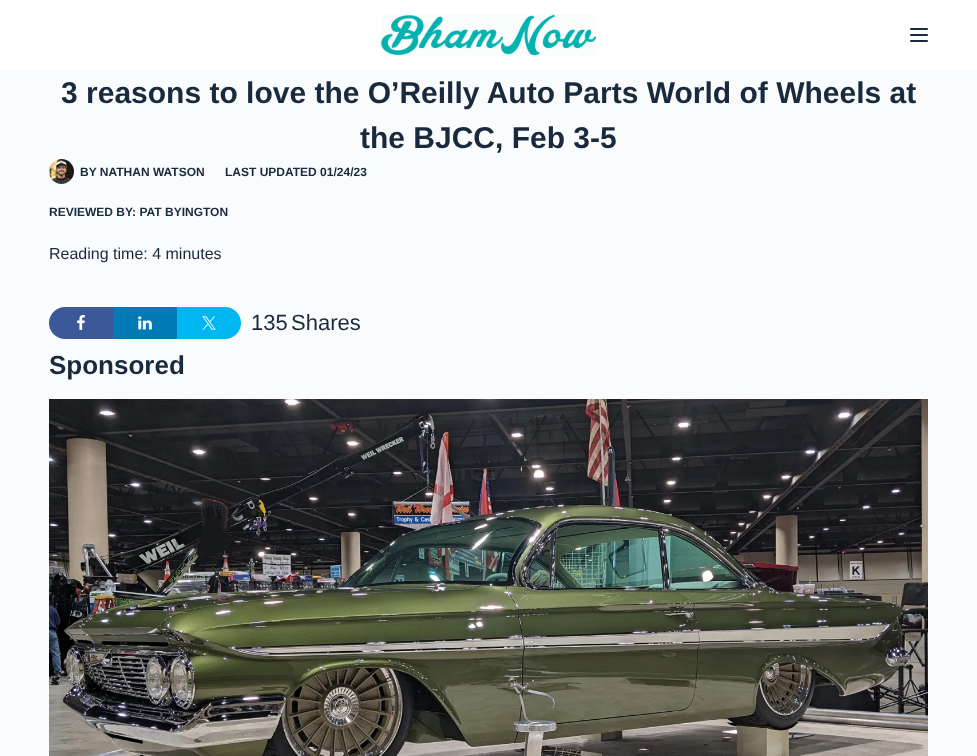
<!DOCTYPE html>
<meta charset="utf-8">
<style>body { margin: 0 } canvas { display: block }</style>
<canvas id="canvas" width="977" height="756"></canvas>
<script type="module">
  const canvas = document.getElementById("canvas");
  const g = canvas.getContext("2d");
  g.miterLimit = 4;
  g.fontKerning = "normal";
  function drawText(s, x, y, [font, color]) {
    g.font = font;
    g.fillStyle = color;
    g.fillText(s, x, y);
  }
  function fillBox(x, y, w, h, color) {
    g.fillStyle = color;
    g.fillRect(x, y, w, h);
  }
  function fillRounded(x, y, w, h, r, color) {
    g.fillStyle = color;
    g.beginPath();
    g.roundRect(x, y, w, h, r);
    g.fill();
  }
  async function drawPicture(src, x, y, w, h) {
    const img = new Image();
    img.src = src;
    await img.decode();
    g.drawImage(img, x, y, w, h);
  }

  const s1 = ["bold 30px Liberation Sans", "#192A3D"];
  const s2 = ["bold 12px Liberation Sans", "#192A3D"];
  const s3 = ["16px Liberation Sans", "#192A3D"];
  const s4 = ["22px Liberation Sans", "#192A3D"];
  const s5 = ["bold 26px Liberation Sans", "#192A3D"];

  fillBox(0, 0, 977, 756, "#FAFBFC");
  fillBox(0, 0, 977, 70, "#FFFFFF");
  await drawPicture("pic1.png", 381, 14, 215, 42);
  fillRounded(910, 28, 18, 2, 1, "#192A3D");
  fillRounded(910, 34, 18, 2, 1, "#192A3D");
  fillRounded(910, 40, 18, 2, 1, "#192A3D");
  drawText("3 reasons to love the O’Reilly Auto Parts World of Wheels at", 61, 103, s1);
  drawText("the BJCC, Feb 3-5", 360, 148, s1);
  await drawPicture("pic2.png", 49, 159, 25, 25);
  drawText("BY NATHAN WATSON", 80, 176, s2);
  drawText("LAST UPDATED 01/24/23", 225, 176, s2);
  drawText("REVIEWED BY: PAT BYINGTON", 49, 216, s2);
  drawText("Reading time: 4 minutes", 49, 259, s3);
  g.fillStyle = "#3B5998";
  g.beginPath();
  g.roundRect(49, 307, 64, 32, [16, 0, 0, 16]);
  g.fill();
  await drawPicture("pic3.png", 77, 315, 8, 15);
  fillBox(113, 307, 64, 32, "#007BB6");
  await drawPicture("pic4.png", 138, 316, 14, 14);
  g.fillStyle = "#00B6F1";
  g.beginPath();
  g.roundRect(177, 307, 64, 32, [0, 16, 16, 0]);
  g.fill();
  await drawPicture("pic5.png", 202, 316, 14, 14);
  drawText("135", 251, 330, s4);
  drawText("Shares", 291, 330, s4);
  drawText("Sponsored", 49, 374, s5);
  await drawPicture("pic6.png", 49, 399, 879, 357);
</script>
